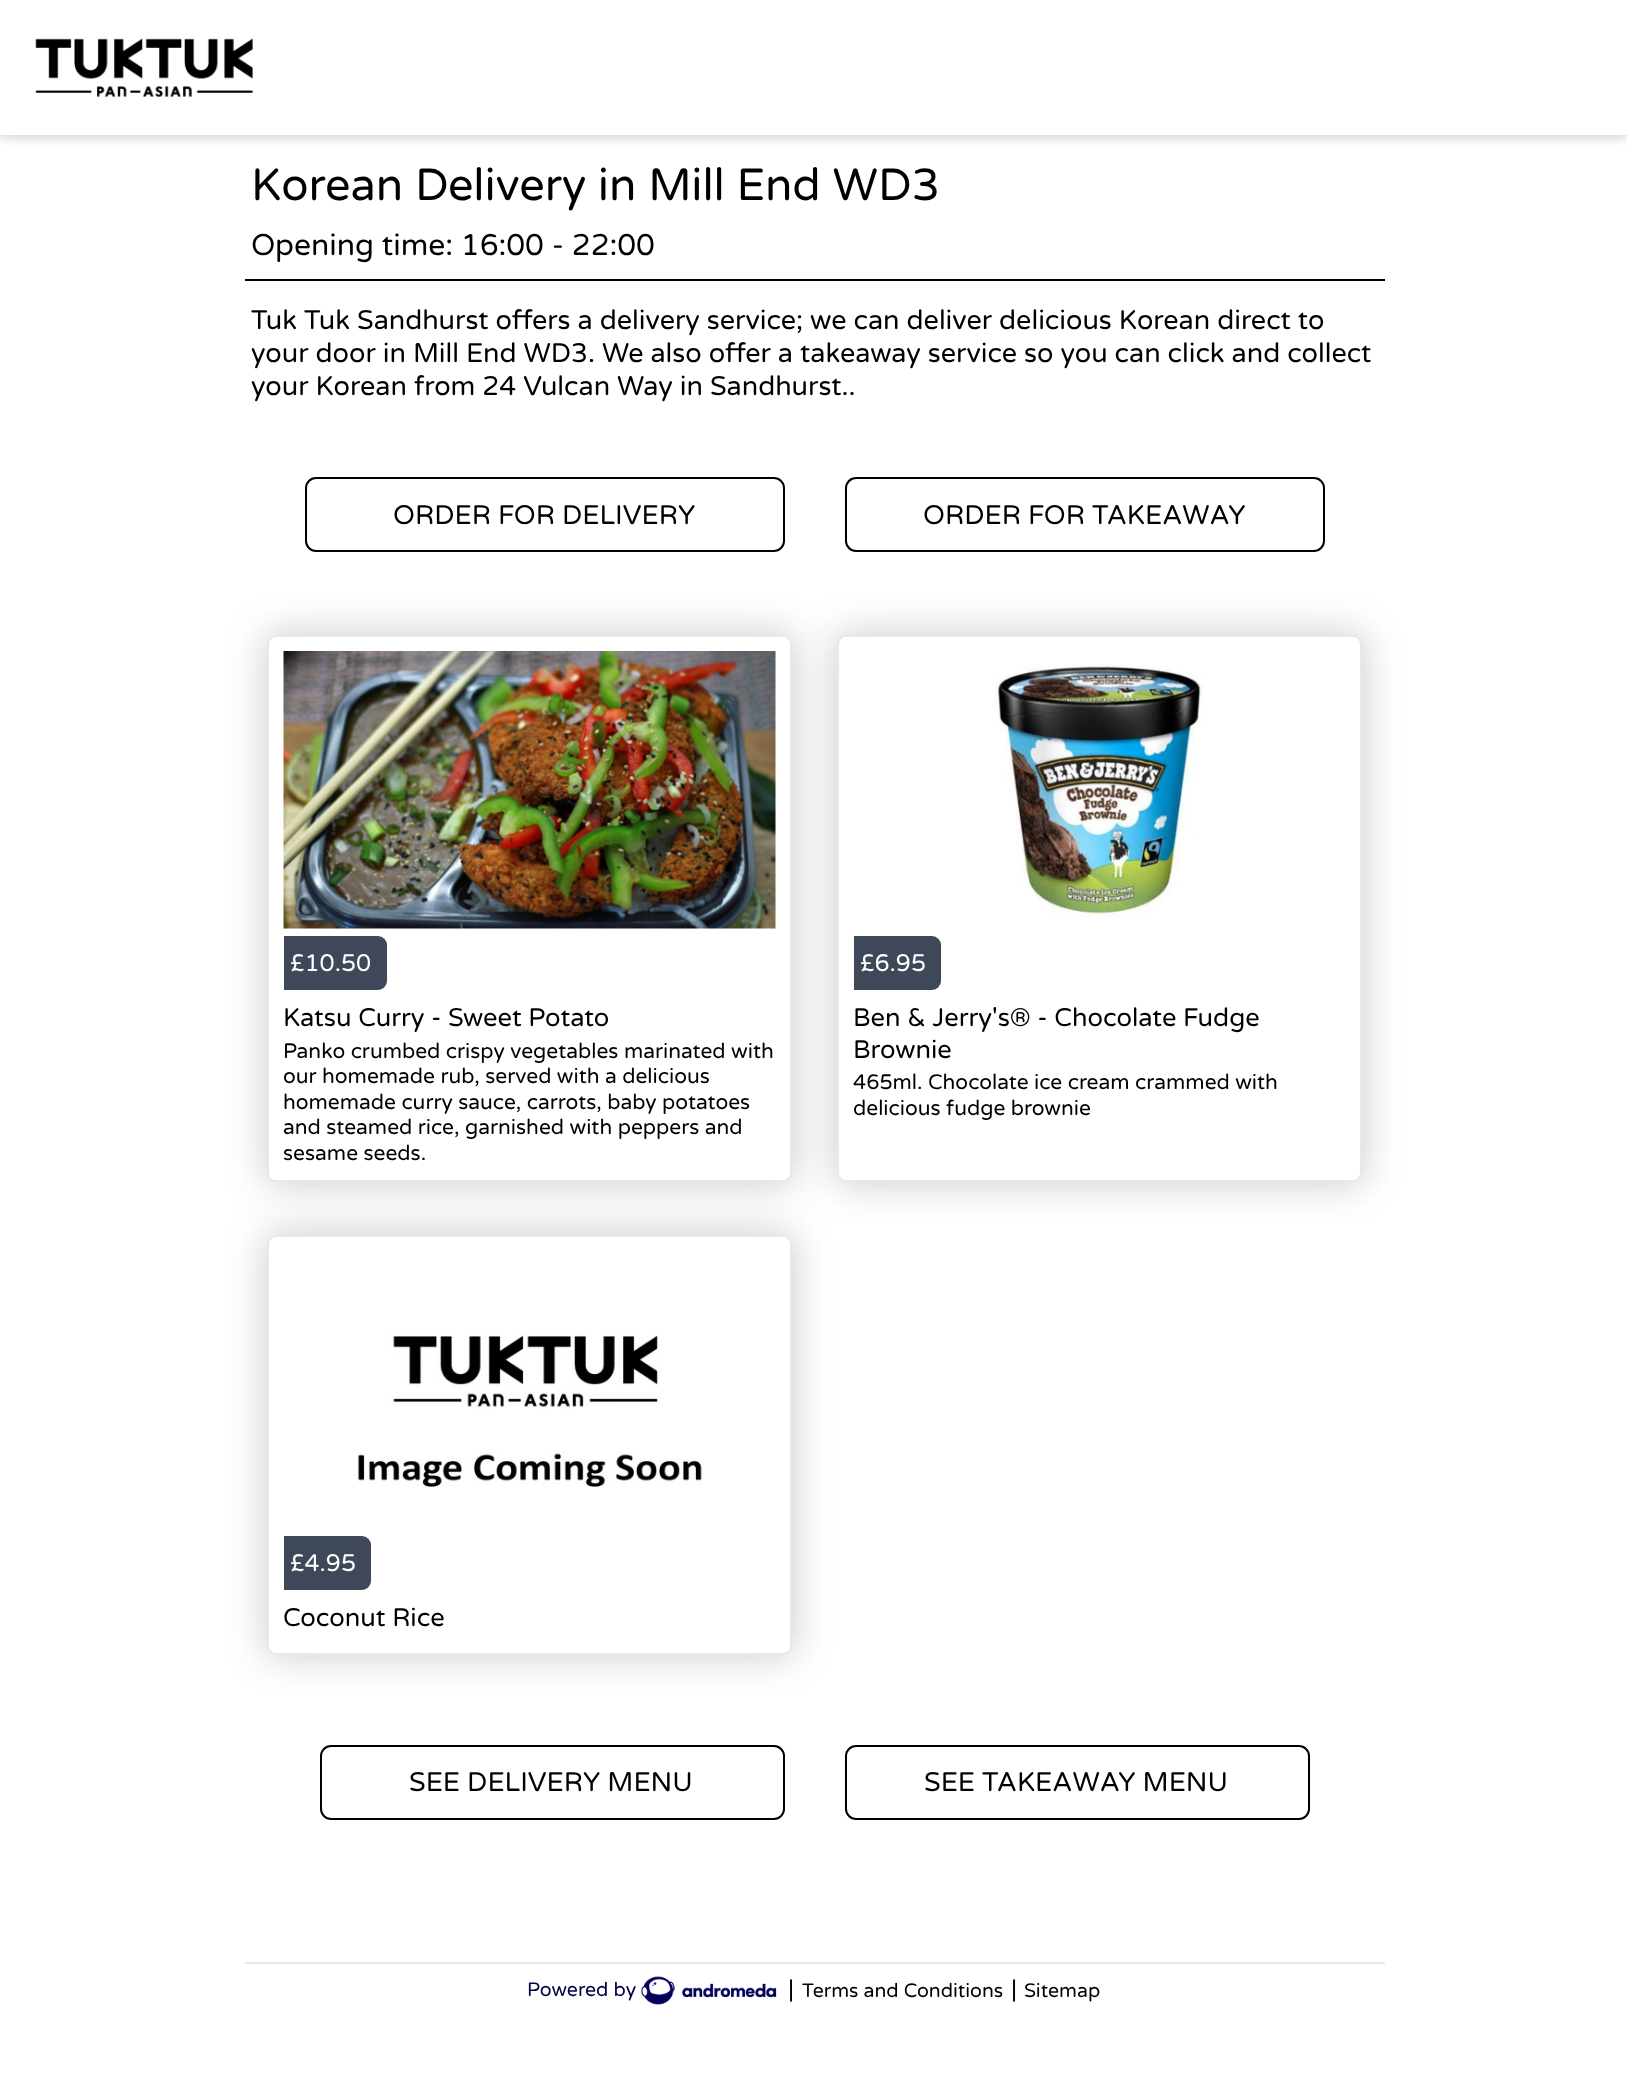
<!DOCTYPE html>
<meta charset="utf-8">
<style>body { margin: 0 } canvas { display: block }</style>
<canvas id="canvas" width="1627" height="2073"></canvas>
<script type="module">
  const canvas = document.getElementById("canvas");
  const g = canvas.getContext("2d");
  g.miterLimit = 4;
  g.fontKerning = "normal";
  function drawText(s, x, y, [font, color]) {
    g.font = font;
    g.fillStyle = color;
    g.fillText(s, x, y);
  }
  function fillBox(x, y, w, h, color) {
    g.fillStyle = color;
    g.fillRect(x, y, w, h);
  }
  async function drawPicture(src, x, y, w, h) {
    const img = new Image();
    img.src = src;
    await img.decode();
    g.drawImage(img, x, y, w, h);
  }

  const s1 = ["45px Varela Round", "#000000"];
  const s2 = ["30px Varela Round", "#000000"];
  const s3 = ["27px Varela Round", "#000000"];
  const s4 = ["24px Varela Round", "#FFFFFF"];
  const s5 = ["25.5px Varela Round", "#000000"];
  const s6 = ["21px Varela Round", "#000000"];
  const s7 = ["19.5px Varela Round", "#000045"];
  const s8 = ["24px Varela Round", "#000000"];
  const s9 = ["19.5px Varela Round", "#000000"];

  fillBox(0, 0, 1627, 2073, "#FFFFFF");
  g.save();
  g.beginPath();
  g.rect(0, 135, 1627, 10);
  g.clip();
  g.fillStyle = "rgba(53, 53, 53, 0.25)";
  g.filter = "blur(6px)";
  g.beginPath();
  g.rect(-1, -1, 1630, 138);
  g.fill();
  g.filter = "none";
  g.restore();
  await drawPicture("pic1.png", 35, 38, 218, 60);
  drawText("Korean Delivery in Mill End WD3", 251, 200, s1);
  fillBox(245, 279, 1140, 2, "#000000");
  drawText("Opening time: 16:00 - 22:00", 251, 255, s2);
  drawText("Tuk Tuk Sandhurst offers a delivery service; we can deliver delicious Korean direct to", 251, 329, s3);
  drawText("your door in Mill End WD3. We also offer a takeaway service so you can click and collect", 251, 362, s3);
  drawText("your Korean from 24 Vulcan Way in Sandhurst..", 251, 395, s3);
  g.beginPath();
  g.roundRect(306, 478, 478, 73, 10);
  g.strokeStyle = "#000000";
  g.lineWidth = 2;
  g.stroke();
  drawText("ORDER FOR DELIVERY", 393, 524, s3);
  g.beginPath();
  g.roundRect(846, 478, 478, 73, 10);
  g.stroke();
  drawText("ORDER FOR TAKEAWAY", 923, 524, s3);
  g.fillStyle = "rgba(53, 53, 53, 0.25)";
  g.filter = "blur(19px)";
  g.beginPath();
  g.roundRect(266, 633, 528, 551, 11);
  g.fill();
  g.filter = "none";
  g.fillStyle = "#FFFFFF";
  g.beginPath();
  g.roundRect(268, 636, 523, 545, 8);
  g.fill();
  g.strokeStyle = "#E8E8E8";
  g.stroke();
  await drawPicture("pic2.png", 283, 651, 493, 278);
  g.fillStyle = "#3F4858";
  g.beginPath();
  g.roundRect(284, 936, 103, 54, [0, 9, 9, 0]);
  g.fill();
  drawText("£10.50", 290, 971, s4);
  drawText("Katsu Curry - Sweet Potato", 283, 1026, s5);
  drawText("Panko crumbed crispy vegetables marinated with", 283, 1058, s6);
  drawText("our homemade rub, served with a delicious", 283, 1083, s6);
  drawText("homemade curry sauce, carrots, baby potatoes", 283, 1109, s6);
  drawText("and steamed rice, garnished with peppers and", 283, 1134, s6);
  drawText("sesame seeds.", 283, 1160, s6);
  g.fillStyle = "rgba(53, 53, 53, 0.25)";
  g.filter = "blur(19px)";
  g.beginPath();
  g.roundRect(836, 633, 528, 551, 11);
  g.fill();
  g.filter = "none";
  g.fillStyle = "#FFFFFF";
  g.beginPath();
  g.roundRect(838, 636, 523, 545, 8);
  g.fill();
  g.stroke();
  await drawPicture("pic3.png", 994, 664, 210, 254);
  g.fillStyle = "#3F4858";
  g.beginPath();
  g.roundRect(854, 936, 87, 54, [0, 9, 9, 0]);
  g.fill();
  drawText("£6.95", 860, 971, s4);
  drawText("Ben & Jerry's® - Chocolate Fudge", 853, 1026, s5);
  drawText("Brownie", 853, 1058, s5);
  drawText("465ml. Chocolate ice cream crammed with", 853, 1089, s6);
  drawText("delicious fudge brownie", 853, 1115, s6);
  g.fillStyle = "rgba(53, 53, 53, 0.25)";
  g.filter = "blur(19px)";
  g.beginPath();
  g.roundRect(266, 1233, 528, 423, 11);
  g.fill();
  g.filter = "none";
  g.fillStyle = "#FFFFFF";
  g.beginPath();
  g.roundRect(268, 1236, 523, 418, 8);
  g.fill();
  g.stroke();
  await drawPicture("pic4.png", 358, 1334, 346, 153);
  g.fillStyle = "#3F4858";
  g.beginPath();
  g.roundRect(284, 1536, 87, 54, [0, 9, 9, 0]);
  g.fill();
  drawText("£4.95", 290, 1571, s4);
  drawText("Coconut Rice", 283, 1626, s5);
  g.beginPath();
  g.roundRect(321, 1746, 463, 73, 10);
  g.strokeStyle = "#000000";
  g.stroke();
  drawText("SEE DELIVERY MENU", 409, 1791, s3);
  g.beginPath();
  g.roundRect(846, 1746, 463, 73, 10);
  g.stroke();
  drawText("SEE TAKEAWAY MENU", 924, 1791, s3);
  fillBox(245, 1962, 1140, 2, "#E6E6E6");
  drawText("Powered by", 527, 1996, s7);
  await drawPicture("pic5.png", 641, 1976, 136, 29);
  drawText("|", 788, 1997, s8);
  drawText("Terms and Conditions", 802, 1997, s9);
  drawText("|", 1011, 1997, s8);
  drawText("Sitemap", 1024, 1997, s9);
</script>
